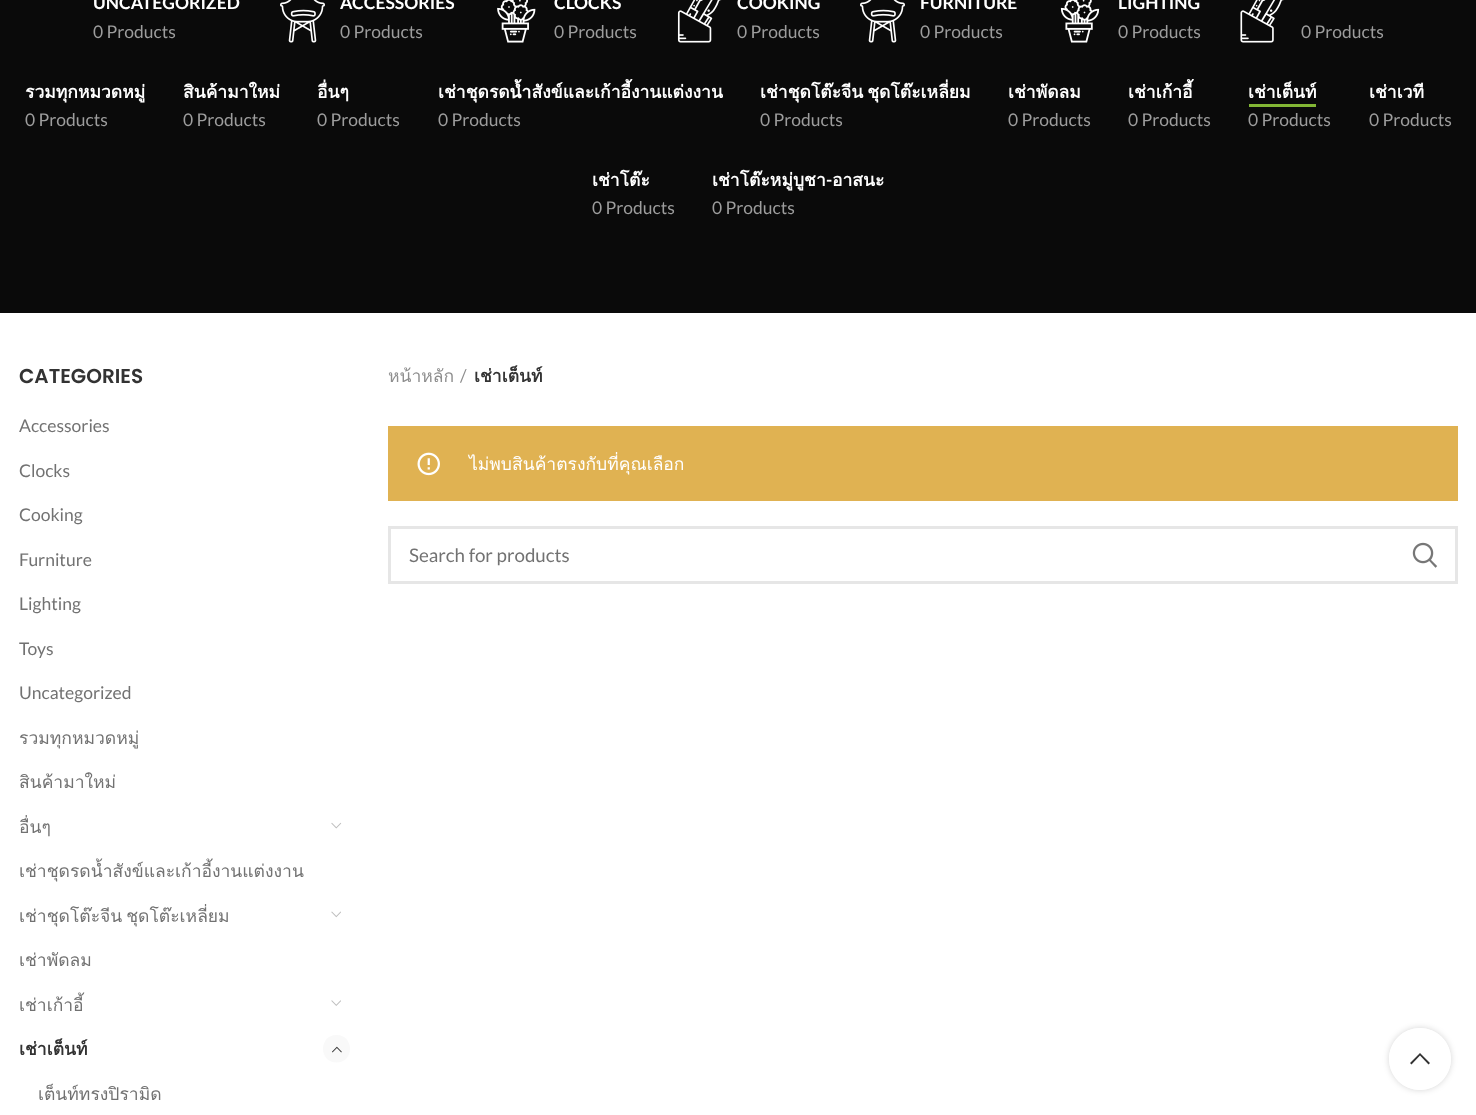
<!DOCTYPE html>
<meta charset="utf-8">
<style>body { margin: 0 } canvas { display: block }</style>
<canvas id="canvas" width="1476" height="1115"></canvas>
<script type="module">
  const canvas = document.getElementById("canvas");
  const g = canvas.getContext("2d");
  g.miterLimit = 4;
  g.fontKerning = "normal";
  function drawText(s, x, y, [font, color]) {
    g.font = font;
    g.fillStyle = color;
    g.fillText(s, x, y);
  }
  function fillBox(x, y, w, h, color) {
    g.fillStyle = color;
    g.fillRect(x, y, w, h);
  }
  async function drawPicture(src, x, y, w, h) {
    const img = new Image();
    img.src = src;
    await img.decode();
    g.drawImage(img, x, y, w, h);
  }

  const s1 = ["bold 17.5px Lato", "#FFFFFF"];
  const s2 = ["17.5px Lato", "#9D9D9D"];
  const s3 = ["bold 17.5px Loma", "#FFFFFF"];
  const s4 = ["600 20px Poppins", "#333333"];
  const s5 = ["17.5px Lato", "#727272"];
  const s6 = ["17.5px Loma", "#727272"];
  const s7 = ["bold 17.5px Loma", "#333333"];
  const s8 = ["17.5px Loma", "#8E8E8E"];
  const s9 = ["17.5px Lato", "#8E8E8E"];
  const s10 = ["17.5px Loma", "#FFFFFF"];
  const s11 = ["18.75px Lato", "#727272"];

  fillBox(0, 0, 1476, 1115, "#FFFFFF");
  fillBox(0, 0, 1476, 313, "#0A0A0A");
  drawText("UNCATEGORIZED", 93, 9, s1);
  drawText("0 Products", 93, 38, s2);
  await drawPicture("pic1.png", 280, 0, 45, 43);
  drawText("ACCESSORIES", 340, 9, s1);
  drawText("0 Products", 340, 38, s2);
  await drawPicture("pic2.png", 497, 0, 39, 43);
  drawText("CLOCKS", 554, 9, s1);
  drawText("0 Products", 554, 38, s2);
  await drawPicture("pic3.png", 677, 0, 45, 43);
  drawText("COOKING", 737, 9, s1);
  drawText("0 Products", 737, 38, s2);
  await drawPicture("pic1.png", 860, 0, 45, 43);
  drawText("FURNITURE", 920, 9, s1);
  drawText("0 Products", 920, 38, s2);
  await drawPicture("pic4.png", 1060, 0, 40, 43);
  drawText("LIGHTING", 1118, 9, s1);
  drawText("0 Products", 1118, 38, s2);
  await drawPicture("pic5.png", 1240, 0, 44, 43);
  drawText("0 Products", 1301, 38, s2);
  drawText("รวมทุกหมวดหมู่", 25, 98, s3);
  drawText("0 Products", 25, 126, s2);
  drawText("สินค้ามาใหม่", 183, 98, s3);
  drawText("0 Products", 183, 126, s2);
  drawText("อื่นๆ", 317, 98, s3);
  drawText("0 Products", 317, 126, s2);
  drawText("เช่าชุดรดน้ำสังข์และเก้าอี้งานแต่งงาน", 438, 98, s3);
  drawText("0 Products", 438, 126, s2);
  g.wordSpacing = "-2px";
  drawText("เช่าชุดโต๊ะจีน ชุดโต๊ะเหลี่ยม", 760, 98, s3);
  g.wordSpacing = "0px";
  drawText("0 Products", 760, 126, s2);
  drawText("เช่าพัดลม", 1008, 98, s3);
  drawText("0 Products", 1008, 126, s2);
  drawText("เช่าเก้าอี้", 1128, 98, s3);
  drawText("0 Products", 1128, 126, s2);
  drawText("เช่าเต็นท์", 1248, 98, s3);
  fillBox(1249, 104, 67, 3, "#83B735");
  drawText("0 Products", 1248, 126, s2);
  drawText("เช่าเวที", 1369, 98, s3);
  drawText("0 Products", 1369, 126, s2);
  drawText("เช่าโต๊ะ", 592, 186, s3);
  drawText("0 Products", 592, 214, s2);
  drawText("เช่าโต๊ะหมู่บูชา", 712, 186, s3);
  drawText("-", 826, 186, s1);
  drawText("อาสนะ", 832, 186, s3);
  drawText("0 Products", 712, 214, s2);
  drawText("CATEGORIES", 19, 383, s4);
  drawText("Accessories", 19, 432, s5);
  drawText("Clocks", 19, 477, s5);
  drawText("Cooking", 19, 521, s5);
  drawText("Furniture", 19, 566, s5);
  drawText("Lighting", 19, 610, s5);
  drawText("Toys", 19, 655, s5);
  drawText("Uncategorized", 19, 699, s5);
  drawText("รวมทุกหมวดหมู่", 19, 744, s6);
  drawText("สินค้ามาใหม่", 19, 788, s6);
  drawText("อื่นๆ", 19, 833, s6);
  await drawPicture("pic6.png", 331, 822, 11, 7);
  drawText("เช่าชุดรดน้ำสังข์และเก้าอี้งานแต่งงาน", 19, 877, s6);
  g.wordSpacing = "-2px";
  drawText("เช่าชุดโต๊ะจีน ชุดโต๊ะเหลี่ยม", 19, 922, s6);
  await drawPicture("pic7.png", 331, 911, 10, 7);
  g.wordSpacing = "0px";
  drawText("เช่าพัดลม", 19, 966, s6);
  drawText("เช่าเก้าอี้", 19, 1011, s6);
  await drawPicture("pic8.png", 331, 1000, 10, 6);
  drawText("เช่าเต็นท์", 19, 1055, s7);
  g.fillStyle = "#F9F9F9";
  g.beginPath();
  g.moveTo(336.5, 1062.5);
  g.bezierCurveTo(318.5, 1062.5, 318.5, 1035, 336.5, 1035);
  g.bezierCurveTo(354.5, 1035, 354.5, 1062.5, 336.5, 1062.5);
  g.closePath();
  g.fill();
  await drawPicture("pic9.png", 332, 1046, 10, 7);
  drawText("เต็นท์ทรงปิรามิด", 38, 1100, s6);
  drawText("หน้าหลัก", 388, 382, s8);
  drawText("/", 460, 382, s9);
  drawText("เช่าเต็นท์", 474, 382, s7);
  fillBox(388, 426, 1070, 75, "#E0B252");
  await drawPicture("pic10.png", 417, 452, 23, 24);
  drawText("ไม่พบสินค้าตรงกับที่คุณเลือก", 469, 470, s10);
  g.strokeStyle = "#E6E6E6";
  g.lineWidth = 3;
  g.strokeRect(389.5, 527.5, 1067, 55);
  drawText("Search for products", 409, 562, s11);
  await drawPicture("pic11.png", 1412, 542, 26, 26);
  g.save();
  g.beginPath();
  g.moveTo(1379, 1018);
  g.lineTo(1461, 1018);
  g.lineTo(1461, 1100);
  g.lineTo(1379, 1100);
  g.closePath();
  g.moveTo(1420, 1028);
  g.bezierCurveTo(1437, 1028, 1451, 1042, 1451, 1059);
  g.bezierCurveTo(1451, 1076, 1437, 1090, 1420, 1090);
  g.bezierCurveTo(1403, 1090, 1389, 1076, 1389, 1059);
  g.bezierCurveTo(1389, 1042, 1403, 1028, 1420, 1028);
  g.closePath();
  g.clip("evenodd");
  g.fillStyle = "rgba(0, 0, 0, 0.17)";
  g.filter = "blur(3px)";
  g.beginPath();
  g.roundRect(1389, 1028, 62, 62, 31);
  g.fill();
  g.filter = "none";
  g.restore();
  g.fillStyle = "rgba(255, 255, 255, 0.9)";
  g.beginPath();
  g.arc(1420, 1059, 31, 0, Math.PI * 2);
  g.fill();
  g.fillStyle = "#333333";
  g.beginPath();
  g.moveTo(1420, 1053);
  g.lineTo(1430, 1063);
  g.lineTo(1428.5, 1064.5);
  g.lineTo(1420, 1055.5);
  g.lineTo(1411.5, 1064.5);
  g.lineTo(1410, 1063);
  g.closePath();
  g.fill();
</script>
